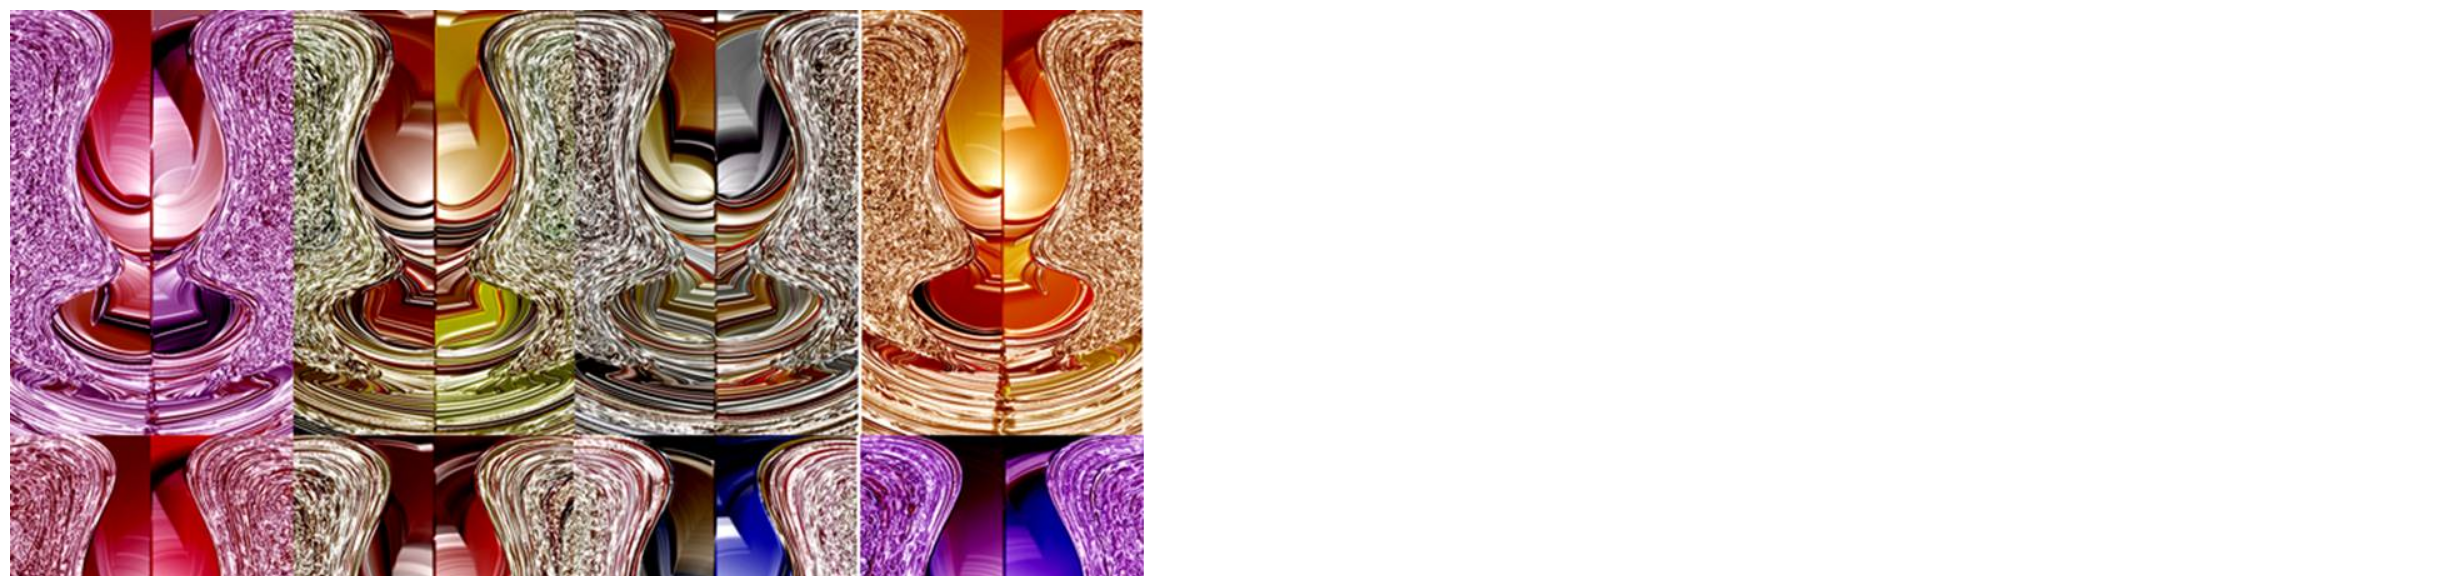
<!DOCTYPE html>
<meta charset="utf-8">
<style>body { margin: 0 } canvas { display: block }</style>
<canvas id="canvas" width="2442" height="576"></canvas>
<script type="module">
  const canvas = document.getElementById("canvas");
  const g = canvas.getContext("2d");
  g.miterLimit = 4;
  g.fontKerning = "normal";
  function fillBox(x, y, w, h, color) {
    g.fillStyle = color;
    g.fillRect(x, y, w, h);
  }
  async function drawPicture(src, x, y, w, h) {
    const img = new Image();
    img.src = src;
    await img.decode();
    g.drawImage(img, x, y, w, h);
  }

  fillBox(0, 0, 2442, 576, "#FFFFFF");
  await drawPicture("pic1.png", 10, 10, 1134, 566);
</script>
